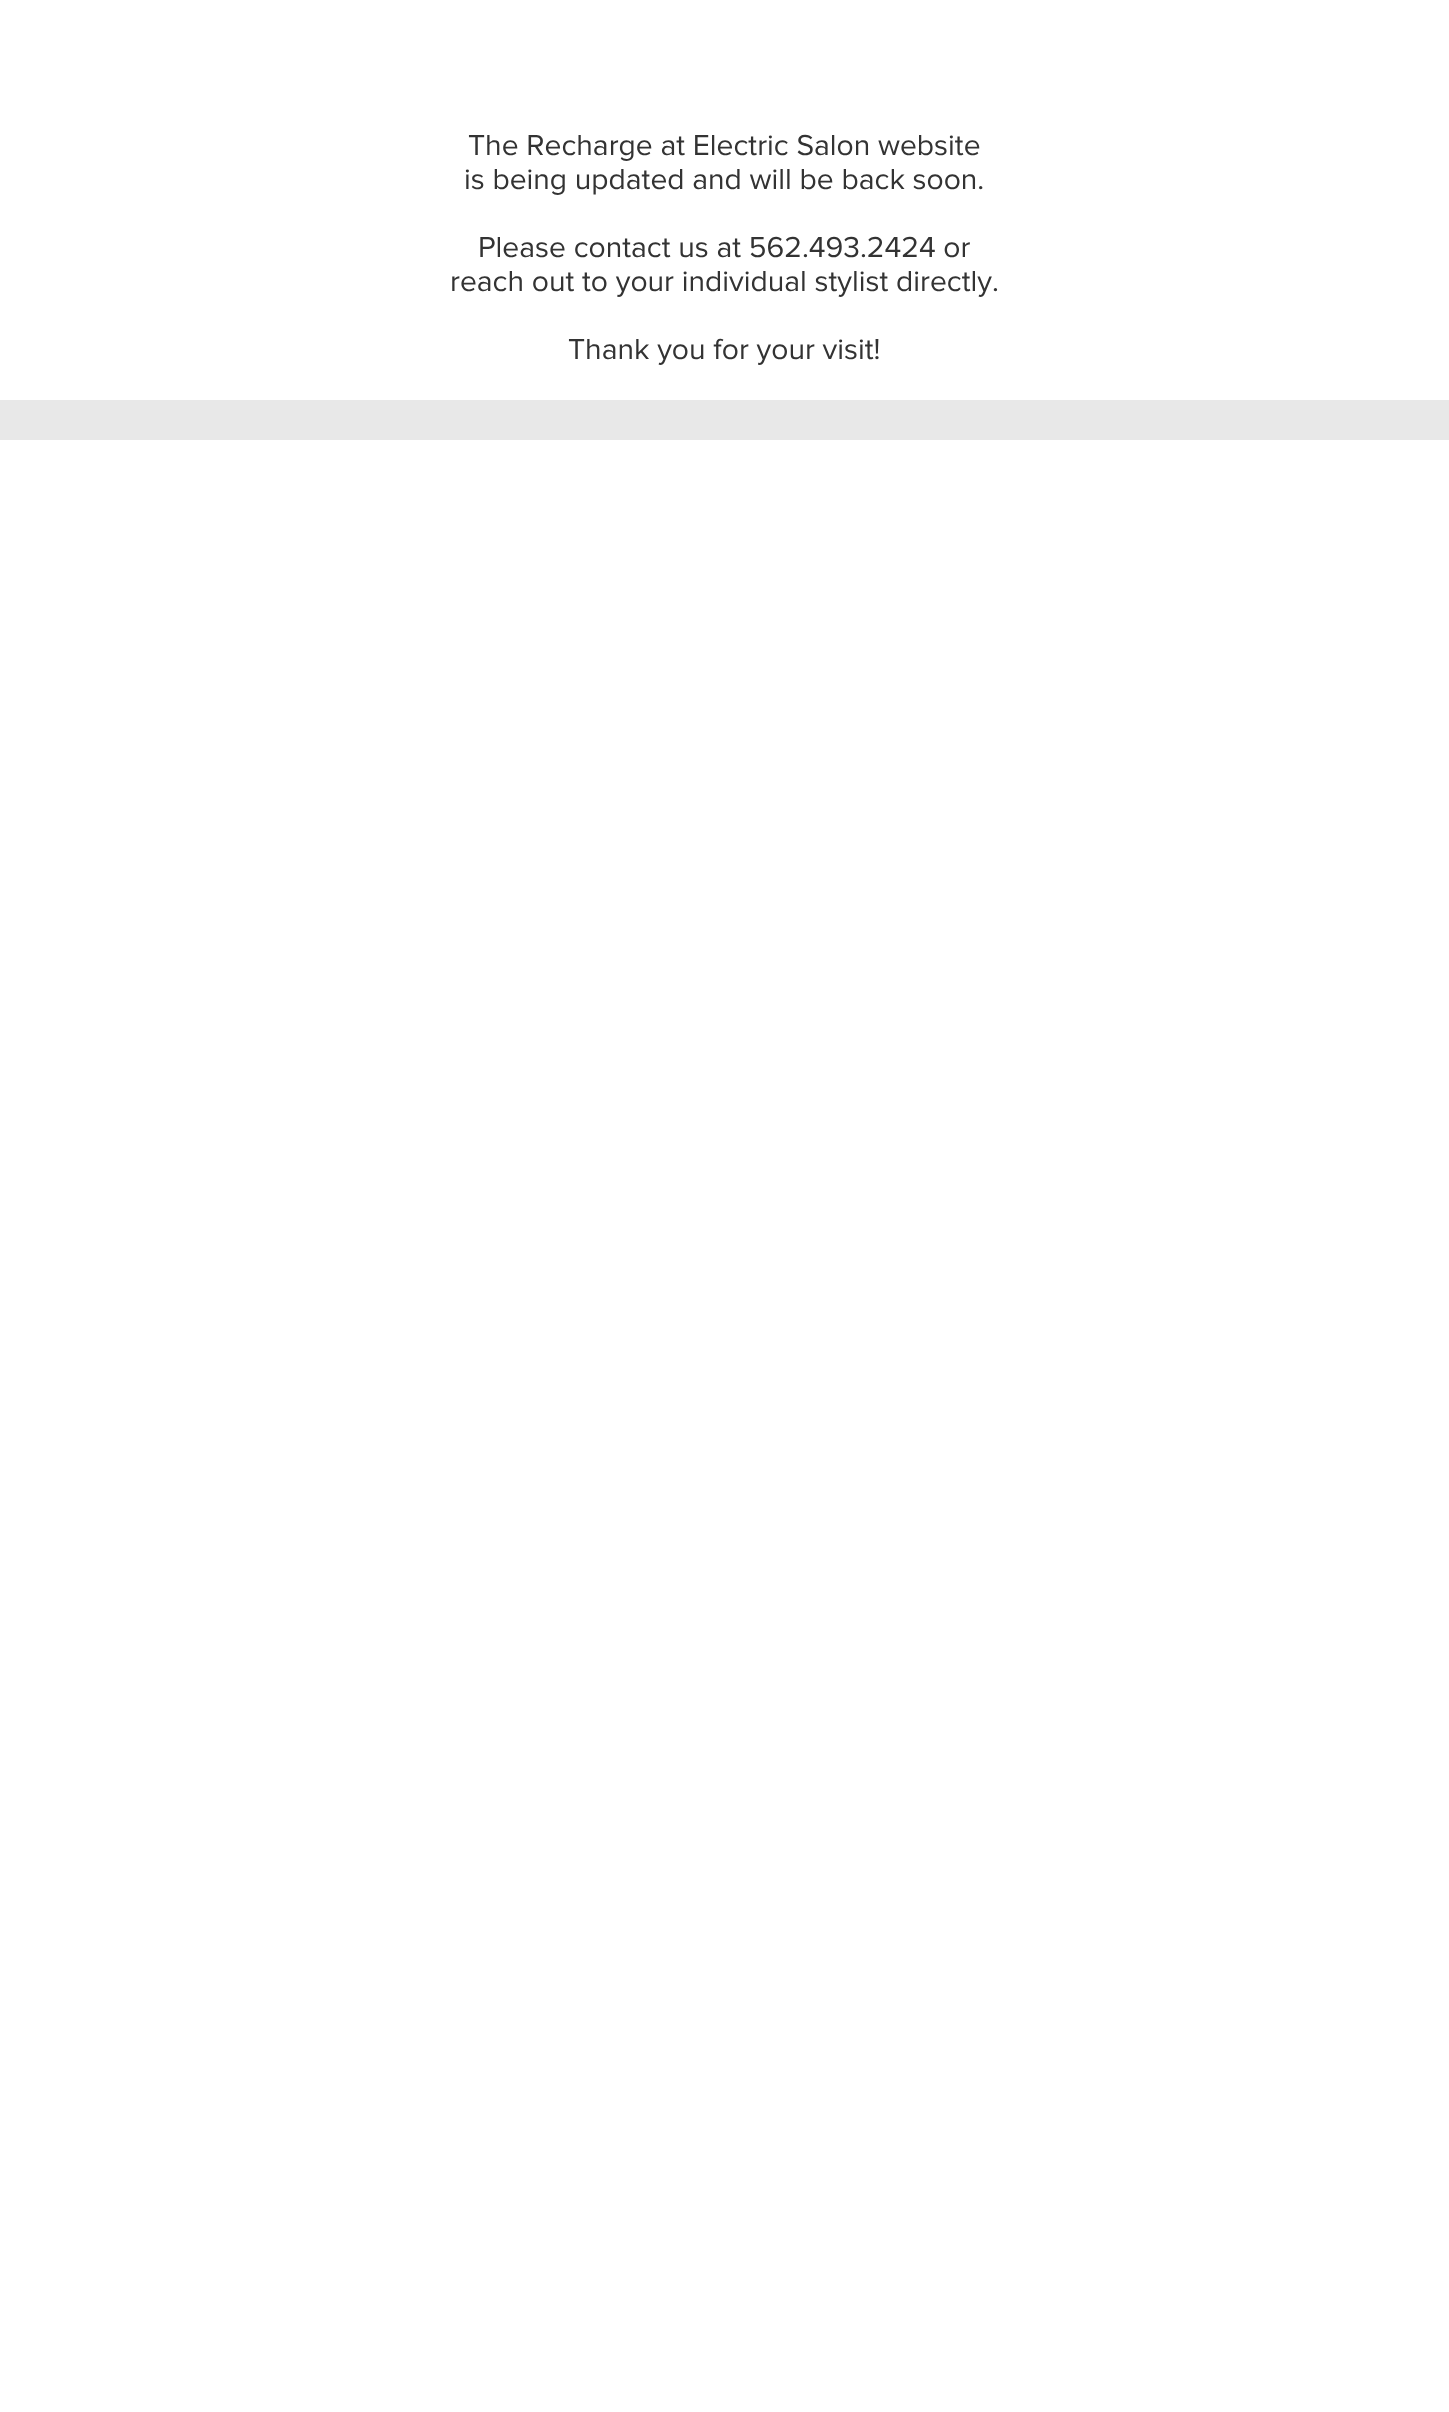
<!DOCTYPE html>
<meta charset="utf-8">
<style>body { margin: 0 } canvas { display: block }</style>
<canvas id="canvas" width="1449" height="2412"></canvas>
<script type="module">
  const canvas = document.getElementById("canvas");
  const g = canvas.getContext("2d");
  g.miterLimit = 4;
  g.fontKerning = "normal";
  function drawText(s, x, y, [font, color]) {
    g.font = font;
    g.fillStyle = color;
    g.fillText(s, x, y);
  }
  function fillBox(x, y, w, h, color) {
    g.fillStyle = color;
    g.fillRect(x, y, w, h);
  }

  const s1 = ["30px 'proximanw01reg'", "#333333"];

  fillBox(0, 0, 1449, 2412, "#FFFFFF");
  drawText("The Recharge at Electric Salon website", 468, 155, s1);
  drawText("is being updated and will be back soon.", 464, 189, s1);
  drawText("Please contact us at 562.493.2424 or", 478, 257, s1);
  drawText("reach out to your individual stylist directly.", 450, 291, s1);
  drawText("Thank you for your visit!", 568, 359, s1);
  fillBox(0, 400, 1449, 40, "#E8E8E8");
</script>
